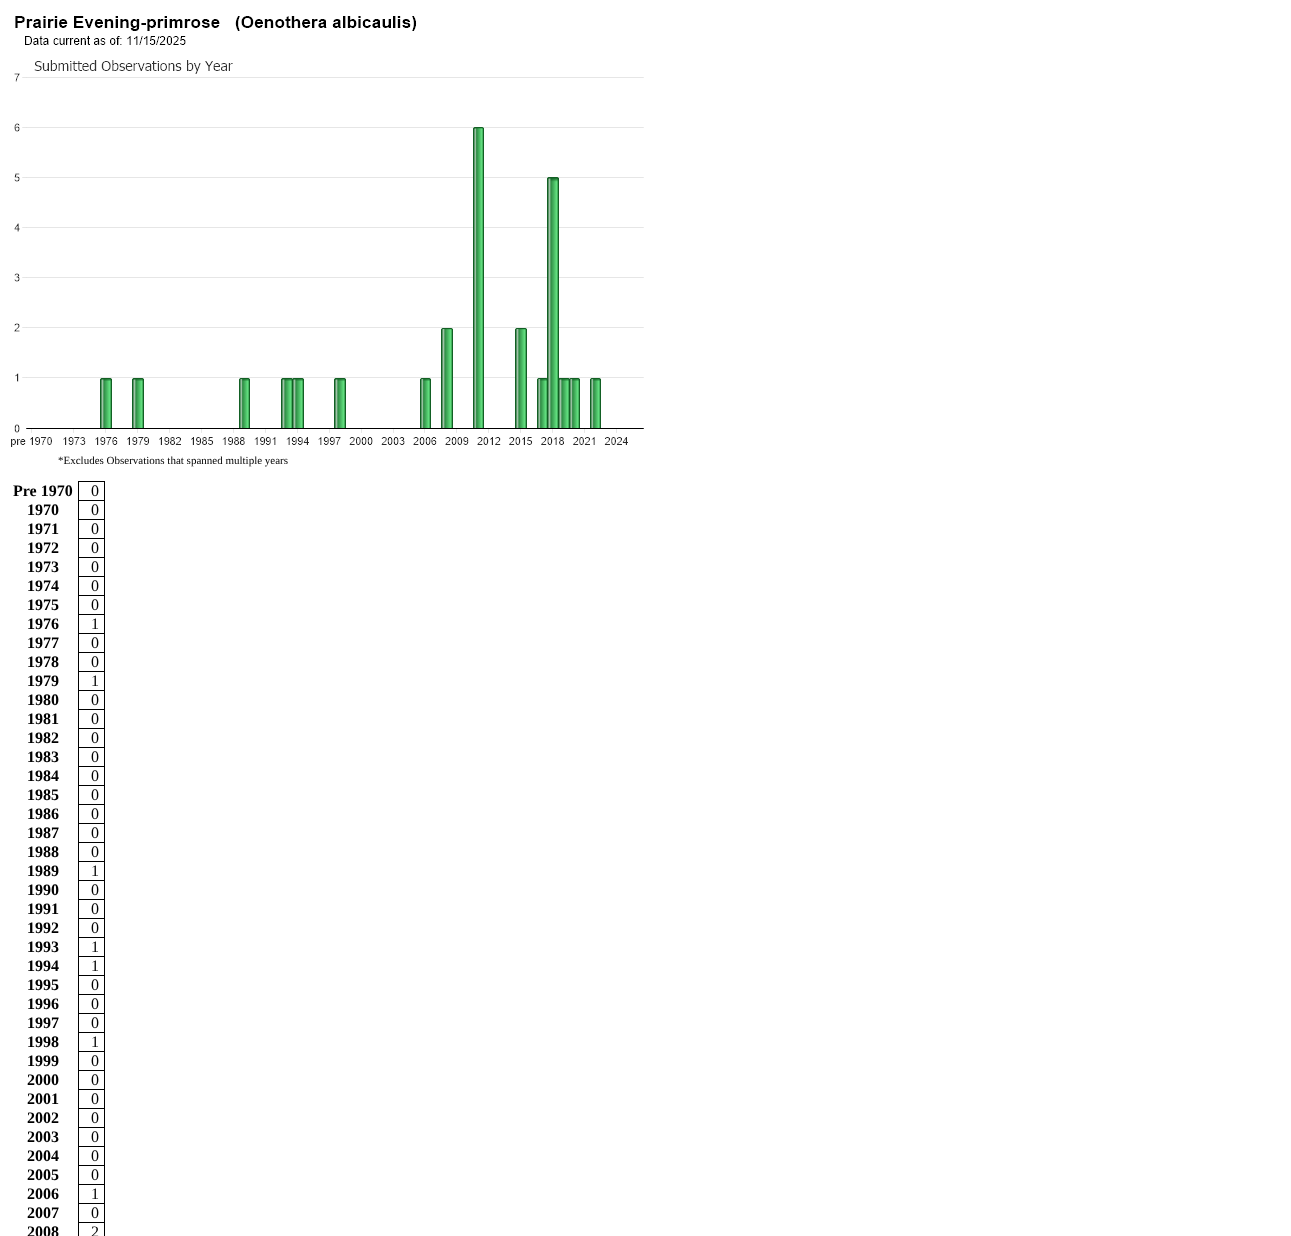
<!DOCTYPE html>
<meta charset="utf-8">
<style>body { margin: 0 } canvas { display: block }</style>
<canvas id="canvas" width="1291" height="1236"></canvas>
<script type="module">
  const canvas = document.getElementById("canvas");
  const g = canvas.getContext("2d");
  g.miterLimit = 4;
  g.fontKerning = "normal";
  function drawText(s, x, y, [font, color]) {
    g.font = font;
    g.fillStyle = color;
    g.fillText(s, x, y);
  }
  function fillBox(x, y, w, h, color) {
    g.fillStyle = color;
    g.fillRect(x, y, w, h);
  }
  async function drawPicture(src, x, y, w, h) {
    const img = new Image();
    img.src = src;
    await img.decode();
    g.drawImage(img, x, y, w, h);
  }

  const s1 = ["11px Liberation Serif", "#000000"];
  const s2 = ["bold 16px Liberation Serif", "#000000"];
  const s3 = ["16px Liberation Serif", "#000000"];

  fillBox(0, 0, 1291, 1236, "#FFFFFF");
  await drawPicture("pic1.png", 11, 16, 633, 431);
  drawText("*Excludes Observations that spanned multiple years", 58, 464, s1);
  drawText("Pre 1970", 13, 496, s2);
  fillBox(78, 481, 27, 1, "#000000");
  fillBox(78, 500, 27, 1, "#000000");
  fillBox(78, 519, 27, 1, "#000000");
  fillBox(78, 538, 27, 1, "#000000");
  fillBox(78, 557, 27, 1, "#000000");
  fillBox(78, 576, 27, 1, "#000000");
  fillBox(78, 595, 27, 1, "#000000");
  fillBox(78, 614, 27, 1, "#000000");
  fillBox(78, 633, 27, 1, "#000000");
  fillBox(78, 652, 27, 1, "#000000");
  fillBox(78, 671, 27, 1, "#000000");
  fillBox(78, 690, 27, 1, "#000000");
  fillBox(78, 709, 27, 1, "#000000");
  fillBox(78, 728, 27, 1, "#000000");
  fillBox(78, 747, 27, 1, "#000000");
  fillBox(78, 766, 27, 1, "#000000");
  fillBox(78, 785, 27, 1, "#000000");
  fillBox(78, 804, 27, 1, "#000000");
  fillBox(78, 823, 27, 1, "#000000");
  fillBox(78, 842, 27, 1, "#000000");
  fillBox(78, 861, 27, 1, "#000000");
  fillBox(78, 880, 27, 1, "#000000");
  fillBox(78, 899, 27, 1, "#000000");
  fillBox(78, 918, 27, 1, "#000000");
  fillBox(78, 937, 27, 1, "#000000");
  fillBox(78, 956, 27, 1, "#000000");
  fillBox(78, 975, 27, 1, "#000000");
  fillBox(78, 994, 27, 1, "#000000");
  fillBox(78, 1013, 27, 1, "#000000");
  fillBox(78, 1032, 27, 1, "#000000");
  fillBox(78, 1051, 27, 1, "#000000");
  fillBox(78, 1070, 27, 1, "#000000");
  fillBox(78, 1089, 27, 1, "#000000");
  fillBox(78, 1108, 27, 1, "#000000");
  fillBox(78, 1127, 27, 1, "#000000");
  fillBox(78, 1146, 27, 1, "#000000");
  fillBox(78, 1165, 27, 1, "#000000");
  fillBox(78, 1184, 27, 1, "#000000");
  fillBox(78, 1203, 27, 1, "#000000");
  fillBox(78, 1222, 27, 1, "#000000");
  fillBox(104, 1222, 1, 14, "#000000");
  fillBox(104, 1203, 1, 20, "#000000");
  fillBox(104, 1184, 1, 20, "#000000");
  fillBox(104, 1165, 1, 20, "#000000");
  fillBox(104, 1146, 1, 20, "#000000");
  fillBox(104, 1127, 1, 20, "#000000");
  fillBox(104, 1108, 1, 20, "#000000");
  fillBox(104, 1089, 1, 20, "#000000");
  fillBox(104, 1070, 1, 20, "#000000");
  fillBox(104, 1051, 1, 20, "#000000");
  fillBox(104, 1032, 1, 20, "#000000");
  fillBox(104, 1013, 1, 20, "#000000");
  fillBox(104, 994, 1, 20, "#000000");
  fillBox(104, 975, 1, 20, "#000000");
  fillBox(104, 956, 1, 20, "#000000");
  fillBox(104, 937, 1, 20, "#000000");
  fillBox(104, 918, 1, 20, "#000000");
  fillBox(104, 899, 1, 20, "#000000");
  fillBox(104, 880, 1, 20, "#000000");
  fillBox(104, 861, 1, 20, "#000000");
  fillBox(104, 842, 1, 20, "#000000");
  fillBox(104, 823, 1, 20, "#000000");
  fillBox(104, 804, 1, 20, "#000000");
  fillBox(104, 785, 1, 20, "#000000");
  fillBox(104, 766, 1, 20, "#000000");
  fillBox(104, 747, 1, 20, "#000000");
  fillBox(104, 728, 1, 20, "#000000");
  fillBox(104, 709, 1, 20, "#000000");
  fillBox(104, 690, 1, 20, "#000000");
  fillBox(104, 671, 1, 20, "#000000");
  fillBox(104, 652, 1, 20, "#000000");
  fillBox(104, 633, 1, 20, "#000000");
  fillBox(104, 614, 1, 20, "#000000");
  fillBox(104, 595, 1, 20, "#000000");
  fillBox(104, 576, 1, 20, "#000000");
  fillBox(104, 557, 1, 20, "#000000");
  fillBox(104, 538, 1, 20, "#000000");
  fillBox(104, 519, 1, 20, "#000000");
  fillBox(104, 500, 1, 20, "#000000");
  fillBox(104, 481, 1, 20, "#000000");
  fillBox(78, 1222, 1, 14, "#000000");
  fillBox(78, 1203, 1, 20, "#000000");
  fillBox(78, 1184, 1, 20, "#000000");
  fillBox(78, 1165, 1, 20, "#000000");
  fillBox(78, 1146, 1, 20, "#000000");
  fillBox(78, 1127, 1, 20, "#000000");
  fillBox(78, 1108, 1, 20, "#000000");
  fillBox(78, 1089, 1, 20, "#000000");
  fillBox(78, 1070, 1, 20, "#000000");
  fillBox(78, 1051, 1, 20, "#000000");
  fillBox(78, 1032, 1, 20, "#000000");
  fillBox(78, 1013, 1, 20, "#000000");
  fillBox(78, 994, 1, 20, "#000000");
  fillBox(78, 975, 1, 20, "#000000");
  fillBox(78, 956, 1, 20, "#000000");
  fillBox(78, 937, 1, 20, "#000000");
  fillBox(78, 918, 1, 20, "#000000");
  fillBox(78, 899, 1, 20, "#000000");
  fillBox(78, 880, 1, 20, "#000000");
  fillBox(78, 861, 1, 20, "#000000");
  fillBox(78, 842, 1, 20, "#000000");
  fillBox(78, 823, 1, 20, "#000000");
  fillBox(78, 804, 1, 20, "#000000");
  fillBox(78, 785, 1, 20, "#000000");
  fillBox(78, 766, 1, 20, "#000000");
  fillBox(78, 747, 1, 20, "#000000");
  fillBox(78, 728, 1, 20, "#000000");
  fillBox(78, 709, 1, 20, "#000000");
  fillBox(78, 690, 1, 20, "#000000");
  fillBox(78, 671, 1, 20, "#000000");
  fillBox(78, 652, 1, 20, "#000000");
  fillBox(78, 633, 1, 20, "#000000");
  fillBox(78, 614, 1, 20, "#000000");
  fillBox(78, 595, 1, 20, "#000000");
  fillBox(78, 576, 1, 20, "#000000");
  fillBox(78, 557, 1, 20, "#000000");
  fillBox(78, 538, 1, 20, "#000000");
  fillBox(78, 519, 1, 20, "#000000");
  fillBox(78, 500, 1, 20, "#000000");
  fillBox(78, 481, 1, 20, "#000000");
  drawText("0", 91, 496, s3);
  drawText("1970", 27, 515, s2);
  drawText("0", 91, 515, s3);
  drawText("1971", 27, 534, s2);
  drawText("0", 91, 534, s3);
  drawText("1972", 27, 553, s2);
  drawText("0", 91, 553, s3);
  drawText("1973", 27, 572, s2);
  drawText("0", 91, 572, s3);
  drawText("1974", 27, 591, s2);
  drawText("0", 91, 591, s3);
  drawText("1975", 27, 610, s2);
  drawText("0", 91, 610, s3);
  drawText("1976", 27, 629, s2);
  drawText("1", 91, 629, s3);
  drawText("1977", 27, 648, s2);
  drawText("0", 91, 648, s3);
  drawText("1978", 27, 667, s2);
  drawText("0", 91, 667, s3);
  drawText("1979", 27, 686, s2);
  drawText("1", 91, 686, s3);
  drawText("1980", 27, 705, s2);
  drawText("0", 91, 705, s3);
  drawText("1981", 27, 724, s2);
  drawText("0", 91, 724, s3);
  drawText("1982", 27, 743, s2);
  drawText("0", 91, 743, s3);
  drawText("1983", 27, 762, s2);
  drawText("0", 91, 762, s3);
  drawText("1984", 27, 781, s2);
  drawText("0", 91, 781, s3);
  drawText("1985", 27, 800, s2);
  drawText("0", 91, 800, s3);
  drawText("1986", 27, 819, s2);
  drawText("0", 91, 819, s3);
  drawText("1987", 27, 838, s2);
  drawText("0", 91, 838, s3);
  drawText("1988", 27, 857, s2);
  drawText("0", 91, 857, s3);
  drawText("1989", 27, 876, s2);
  drawText("1", 91, 876, s3);
  drawText("1990", 27, 895, s2);
  drawText("0", 91, 895, s3);
  drawText("1991", 27, 914, s2);
  drawText("0", 91, 914, s3);
  drawText("1992", 27, 933, s2);
  drawText("0", 91, 933, s3);
  drawText("1993", 27, 952, s2);
  drawText("1", 91, 952, s3);
  drawText("1994", 27, 971, s2);
  drawText("1", 91, 971, s3);
  drawText("1995", 27, 990, s2);
  drawText("0", 91, 990, s3);
  drawText("1996", 27, 1009, s2);
  drawText("0", 91, 1009, s3);
  drawText("1997", 27, 1028, s2);
  drawText("0", 91, 1028, s3);
  drawText("1998", 27, 1047, s2);
  drawText("1", 91, 1047, s3);
  drawText("1999", 27, 1066, s2);
  drawText("0", 91, 1066, s3);
  drawText("2000", 27, 1085, s2);
  drawText("0", 91, 1085, s3);
  drawText("2001", 27, 1104, s2);
  drawText("0", 91, 1104, s3);
  drawText("2002", 27, 1123, s2);
  drawText("0", 91, 1123, s3);
  drawText("2003", 27, 1142, s2);
  drawText("0", 91, 1142, s3);
  drawText("2004", 27, 1161, s2);
  drawText("0", 91, 1161, s3);
  drawText("2005", 27, 1180, s2);
  drawText("0", 91, 1180, s3);
  drawText("2006", 27, 1199, s2);
  drawText("1", 91, 1199, s3);
  drawText("2007", 27, 1218, s2);
  drawText("0", 91, 1218, s3);
  drawText("2008", 27, 1237, s2);
  drawText("2", 91, 1237, s3);
</script>
